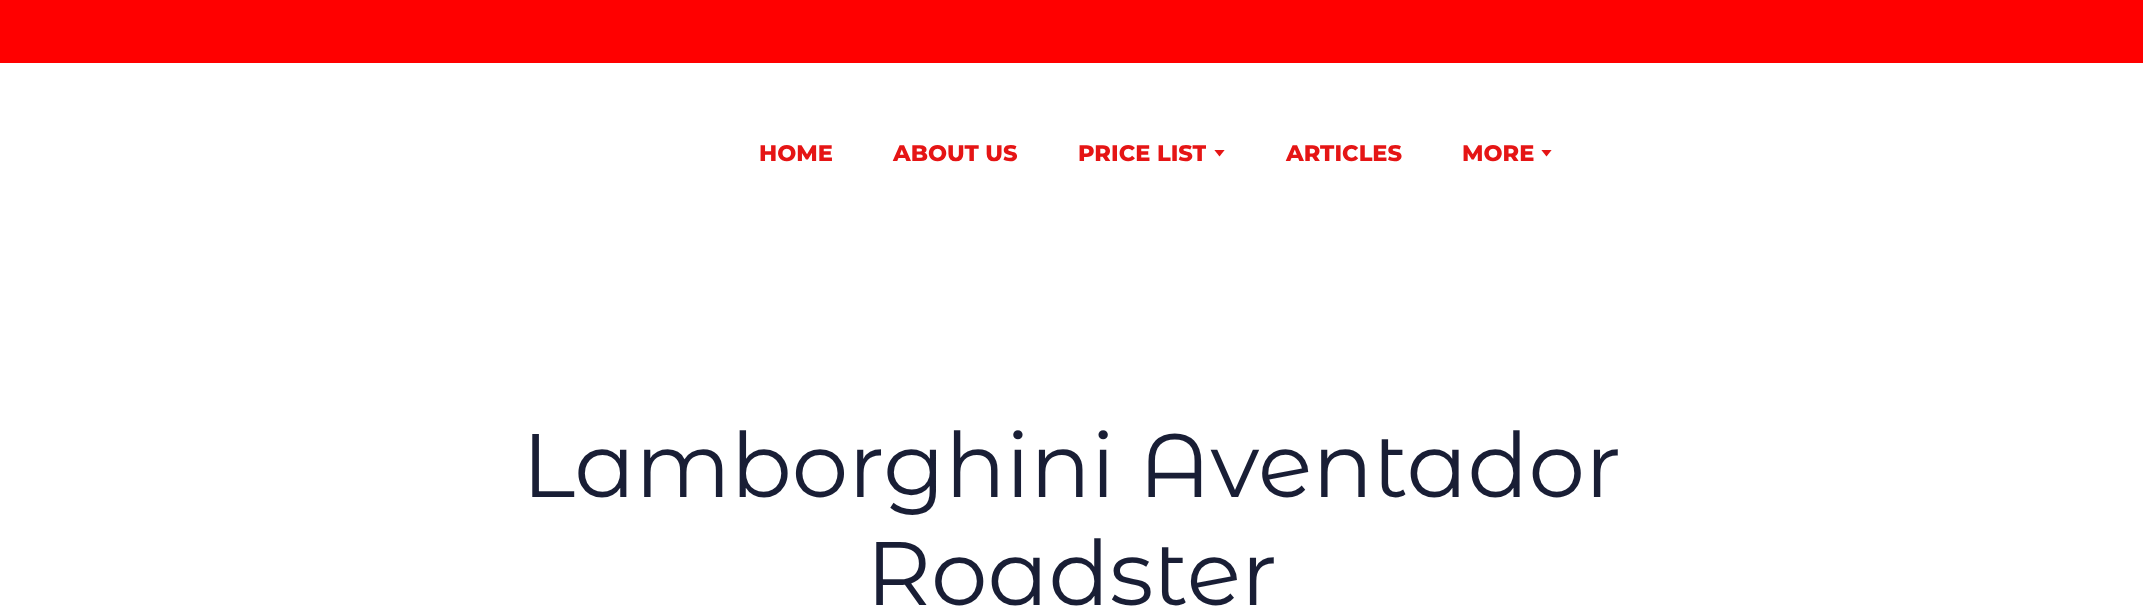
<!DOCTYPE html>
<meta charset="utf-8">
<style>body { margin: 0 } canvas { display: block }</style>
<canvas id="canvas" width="2143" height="612"></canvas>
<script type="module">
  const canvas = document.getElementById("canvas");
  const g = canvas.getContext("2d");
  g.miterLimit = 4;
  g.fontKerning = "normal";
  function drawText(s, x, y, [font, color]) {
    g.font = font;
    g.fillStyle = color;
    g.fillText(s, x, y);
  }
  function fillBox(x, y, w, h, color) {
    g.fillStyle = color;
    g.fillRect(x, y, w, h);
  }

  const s1 = ["800 22.5px Montserrat", "#E51515"];
  const s2 = ["90px Montserrat Alternates", "#191E35"];

  fillBox(0, 0, 2143, 612, "#FFFFFF");
  fillBox(0, 0, 2143, 63, "#FF0000");
  drawText("HOME", 759, 161, s1);
  drawText("ABOUT US", 893, 161, s1);
  g.save();
  g.beginPath();
  g.rect(1077, 140, 129, 28);
  g.clip();
  drawText("PRICE LIST", 1078, 161, s1);
  g.restore();
  g.save();
  g.beginPath();
  g.rect(1212, 150, 14, 8);
  g.clip();
  g.beginPath();
  g.moveTo(1219.5, 156.5);
  g.lineTo(1225, 149.5);
  g.lineTo(1214, 149.5);
  g.closePath();
  g.fill();
  g.restore();
  drawText("ARTICLES", 1286, 161, s1);
  drawText("MORE", 1462, 161, s1);
  g.save();
  g.beginPath();
  g.rect(1539, 150, 15, 8);
  g.clip();
  g.beginPath();
  g.moveTo(1546.5, 156.5);
  g.lineTo(1552, 149.5);
  g.lineTo(1541, 149.5);
  g.closePath();
  g.fill();
  g.restore();
  drawText("Lamborghini Aventador", 522, 497, s2);
  drawText("Roadster", 866, 605, s2);
</script>
